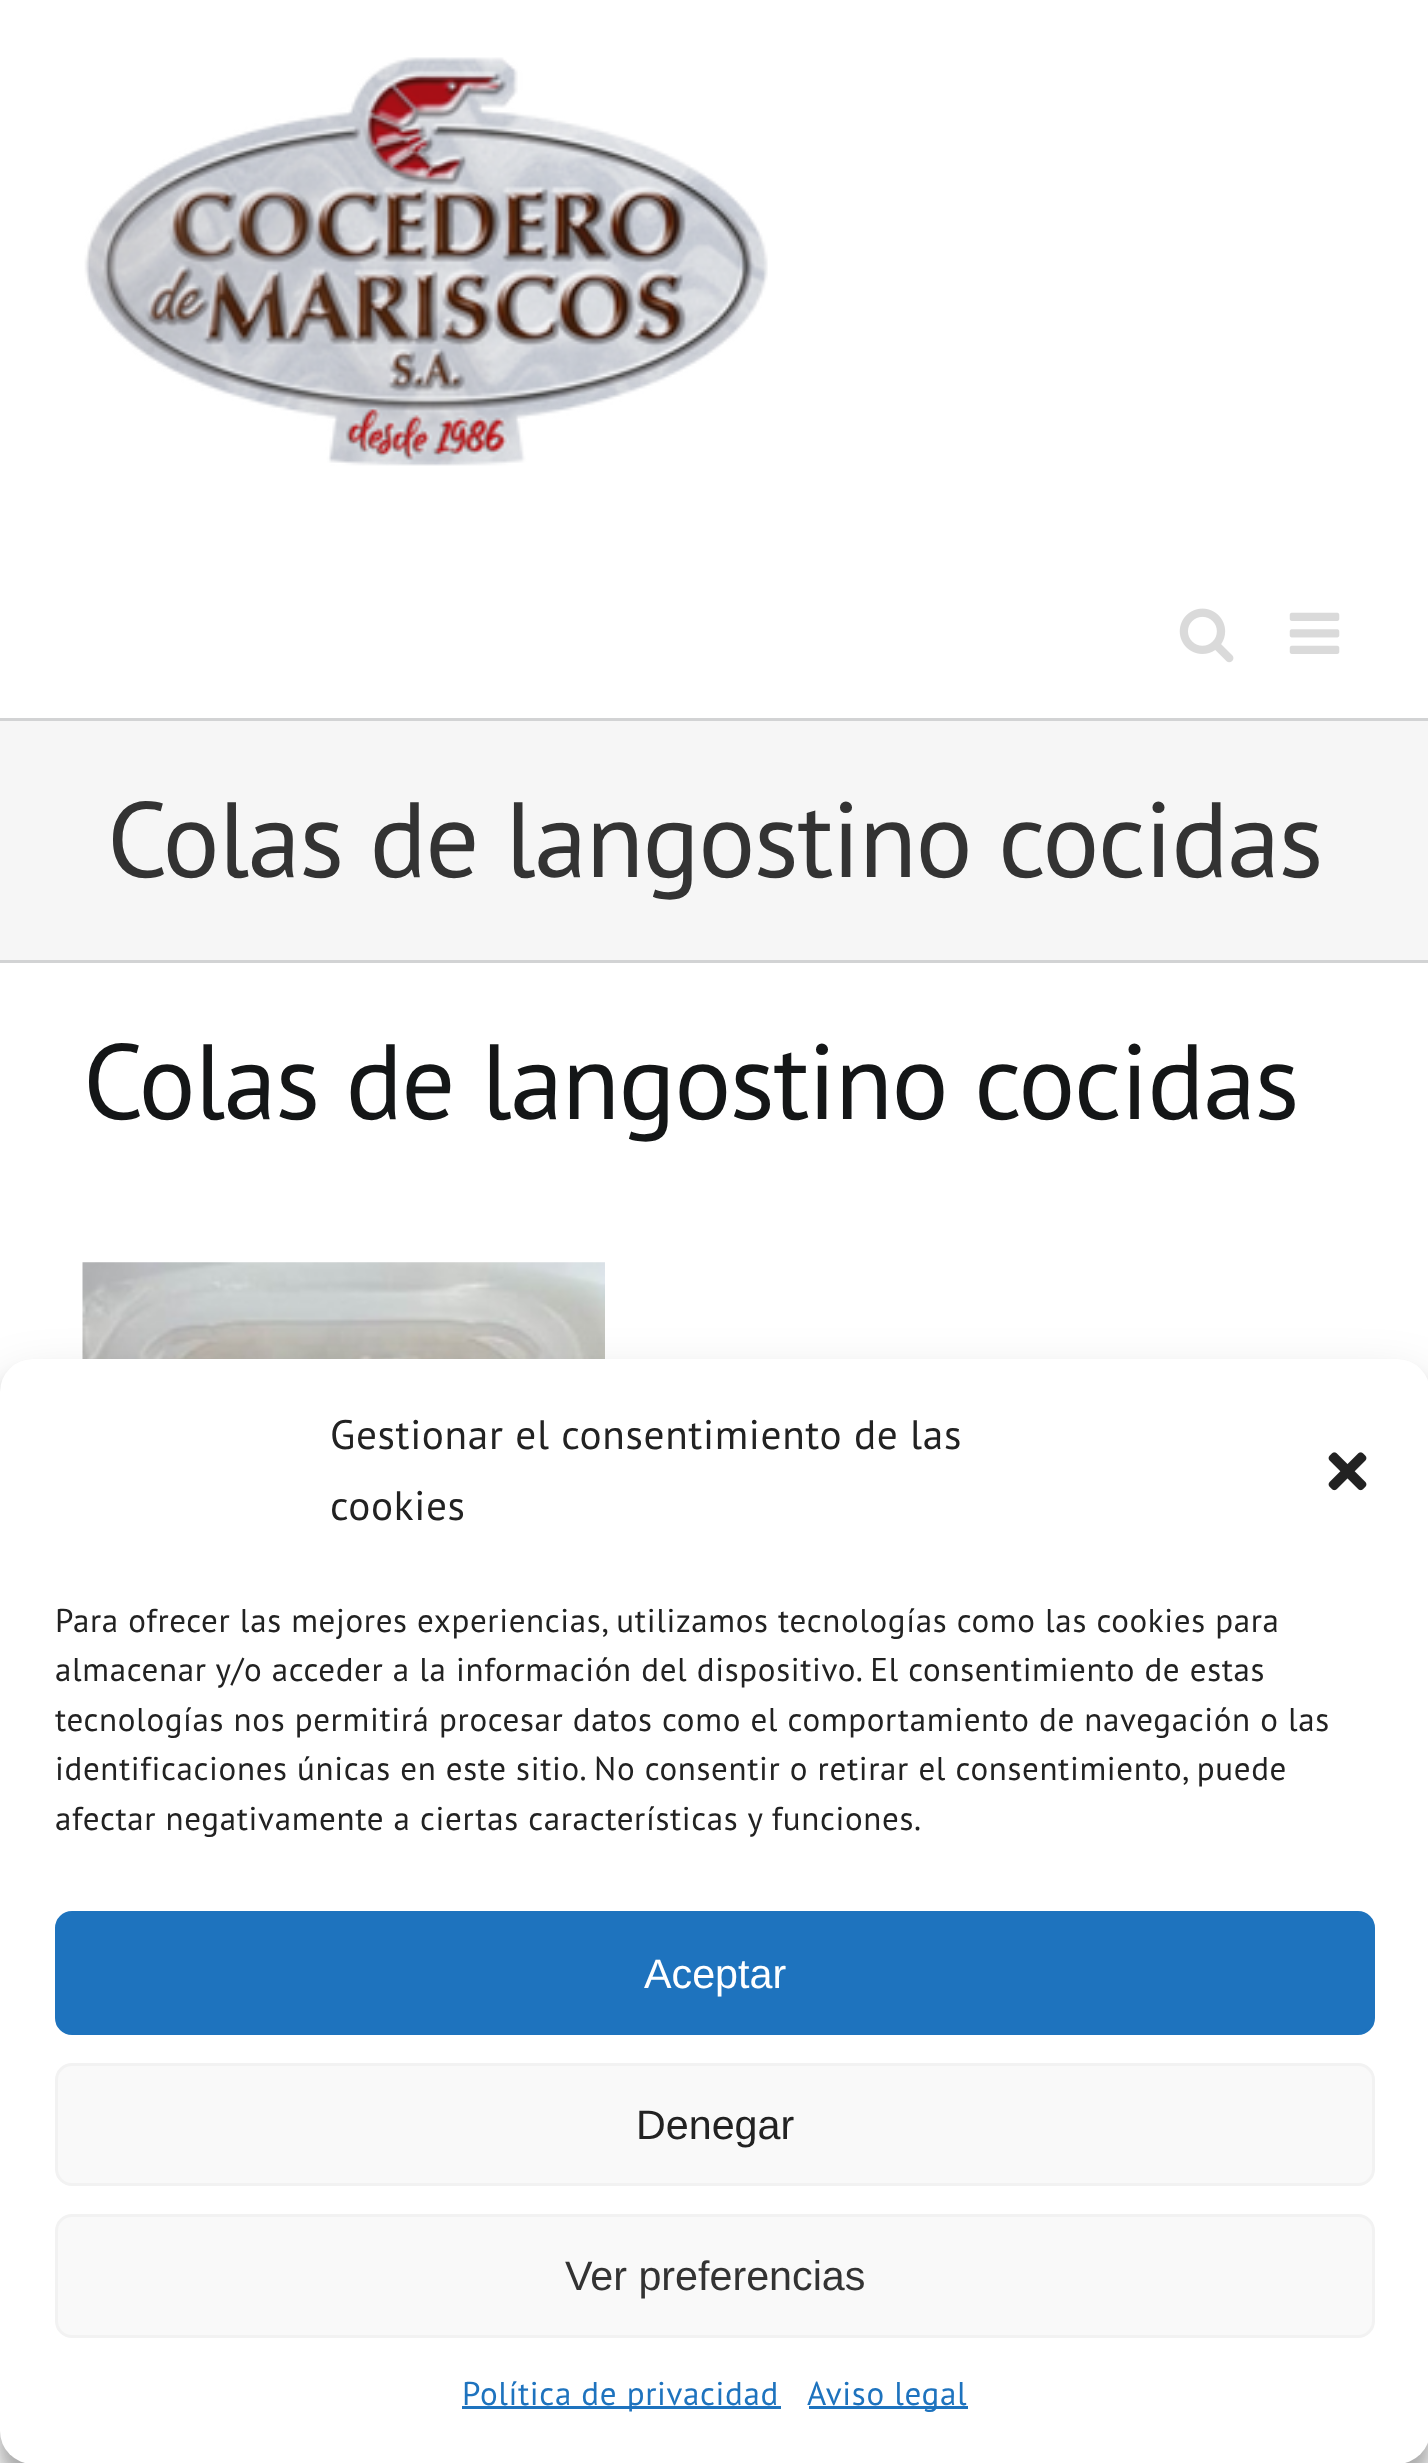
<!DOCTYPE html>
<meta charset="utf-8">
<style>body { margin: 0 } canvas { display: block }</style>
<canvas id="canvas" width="1428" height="2463"></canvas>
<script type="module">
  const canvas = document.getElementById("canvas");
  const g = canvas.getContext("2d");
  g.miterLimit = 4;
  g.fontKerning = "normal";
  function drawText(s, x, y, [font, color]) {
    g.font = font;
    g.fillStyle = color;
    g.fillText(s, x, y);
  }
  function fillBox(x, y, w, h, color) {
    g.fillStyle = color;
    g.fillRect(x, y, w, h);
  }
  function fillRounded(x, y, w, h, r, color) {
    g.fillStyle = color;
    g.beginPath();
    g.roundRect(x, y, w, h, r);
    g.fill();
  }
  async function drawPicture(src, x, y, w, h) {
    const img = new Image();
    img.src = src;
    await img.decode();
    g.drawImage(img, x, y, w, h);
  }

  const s1 = ["106.75px PT Sans", "#333333"];
  const s2 = ["106.75px PT Sans", "#141617"];
  const s3 = ["41.25px PT Sans", "#222222"];
  const s4 = ["33px PT Sans", "#222222"];
  const s5 = ["41.25px Liberation Sans", "#FFFFFF"];
  const s6 = ["41.25px Liberation Sans", "#222222"];
  const s7 = ["41.25px Liberation Sans", "#333333"];
  const s8 = ["33px PT Sans", "#1E73BE"];

  fillBox(0, 0, 1428, 2463, "#FFFFFF");
  await drawPicture("pic1.png", 84, 57, 684, 409);
  await drawPicture("pic2.png", 1179, 608, 55, 55);
  await drawPicture("pic3.png", 1289, 612, 51, 42);
  fillBox(0, 721, 1428, 239, "#F6F6F6");
  fillBox(0, 718, 1428, 3, "#D2D3D4");
  fillBox(0, 960, 1428, 3, "#D2D3D4");
  g.letterSpacing = "-1.6px";
  drawText("Colas de langostino cocidas", 107, 877, s1);
  drawText("Colas de langostino cocidas", 83, 1119, s2);
  await drawPicture("pic4.png", 82, 1262, 523, 97);
  g.fillStyle = "rgba(0, 0, 0, 0.23)";
  g.filter = "blur(8px)";
  g.beginPath();
  g.roundRect(0, 1375, 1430, 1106, 33);
  g.fill();
  g.filter = "none";
  g.fillStyle = "rgba(0, 0, 0, 0.19)";
  g.filter = "blur(27.5px)";
  g.beginPath();
  g.roundRect(0, 1386, 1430, 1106, 33);
  g.fill();
  g.filter = "none";
  fillRounded(0, 1359, 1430, 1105, 33, "#FFFFFF");
  g.letterSpacing = "0.65px";
  drawText("Gestionar el consentimiento de las", 330, 1449, s3);
  drawText("cookies", 330, 1520, s3);
  await drawPicture("pic5.png", 1328, 1452, 39, 39);
  drawText("Para ofrecer las mejores experiencias, utilizamos tecnologías como las cookies para", 55, 1632, s4);
  drawText("almacenar y/o acceder a la información del dispositivo. El consentimiento de estas", 55, 1681, s4);
  drawText("tecnologías nos permitirá procesar datos como el comportamiento de navegación o las", 55, 1731, s4);
  drawText("identificaciones únicas en este sitio. No consentir o retirar el consentimiento, puede", 55, 1780, s4);
  drawText("afectar negativamente a ciertas características y funciones.", 55, 1830, s4);
  g.fillStyle = "#1E73BE";
  g.beginPath();
  g.roundRect(56.5, 1912.5, 1317, 121, 15.5);
  g.fill();
  g.strokeStyle = "#1E73BE";
  g.lineWidth = 3;
  g.stroke();
  g.letterSpacing = "0px";
  drawText("Aceptar", 644, 1988, s5);
  g.fillStyle = "#F9F9F9";
  g.beginPath();
  g.roundRect(56.5, 2064.5, 1317, 120, 15.5);
  g.fill();
  g.strokeStyle = "#F2F2F2";
  g.stroke();
  drawText("Denegar", 636, 2139, s6);
  g.fillStyle = "#F9F9F9";
  g.beginPath();
  g.roundRect(56.5, 2215.5, 1317, 121, 15.5);
  g.fill();
  g.stroke();
  drawText("Ver preferencias", 565, 2290, s7);
  fillBox(462, 2406, 319, 3, "#1E73BE");
  g.letterSpacing = "0.65px";
  drawText("Política de privacidad", 462, 2405, s8);
  fillBox(809, 2406, 159, 3, "#1E73BE");
  drawText("Aviso legal", 807, 2405, s8);
</script>
